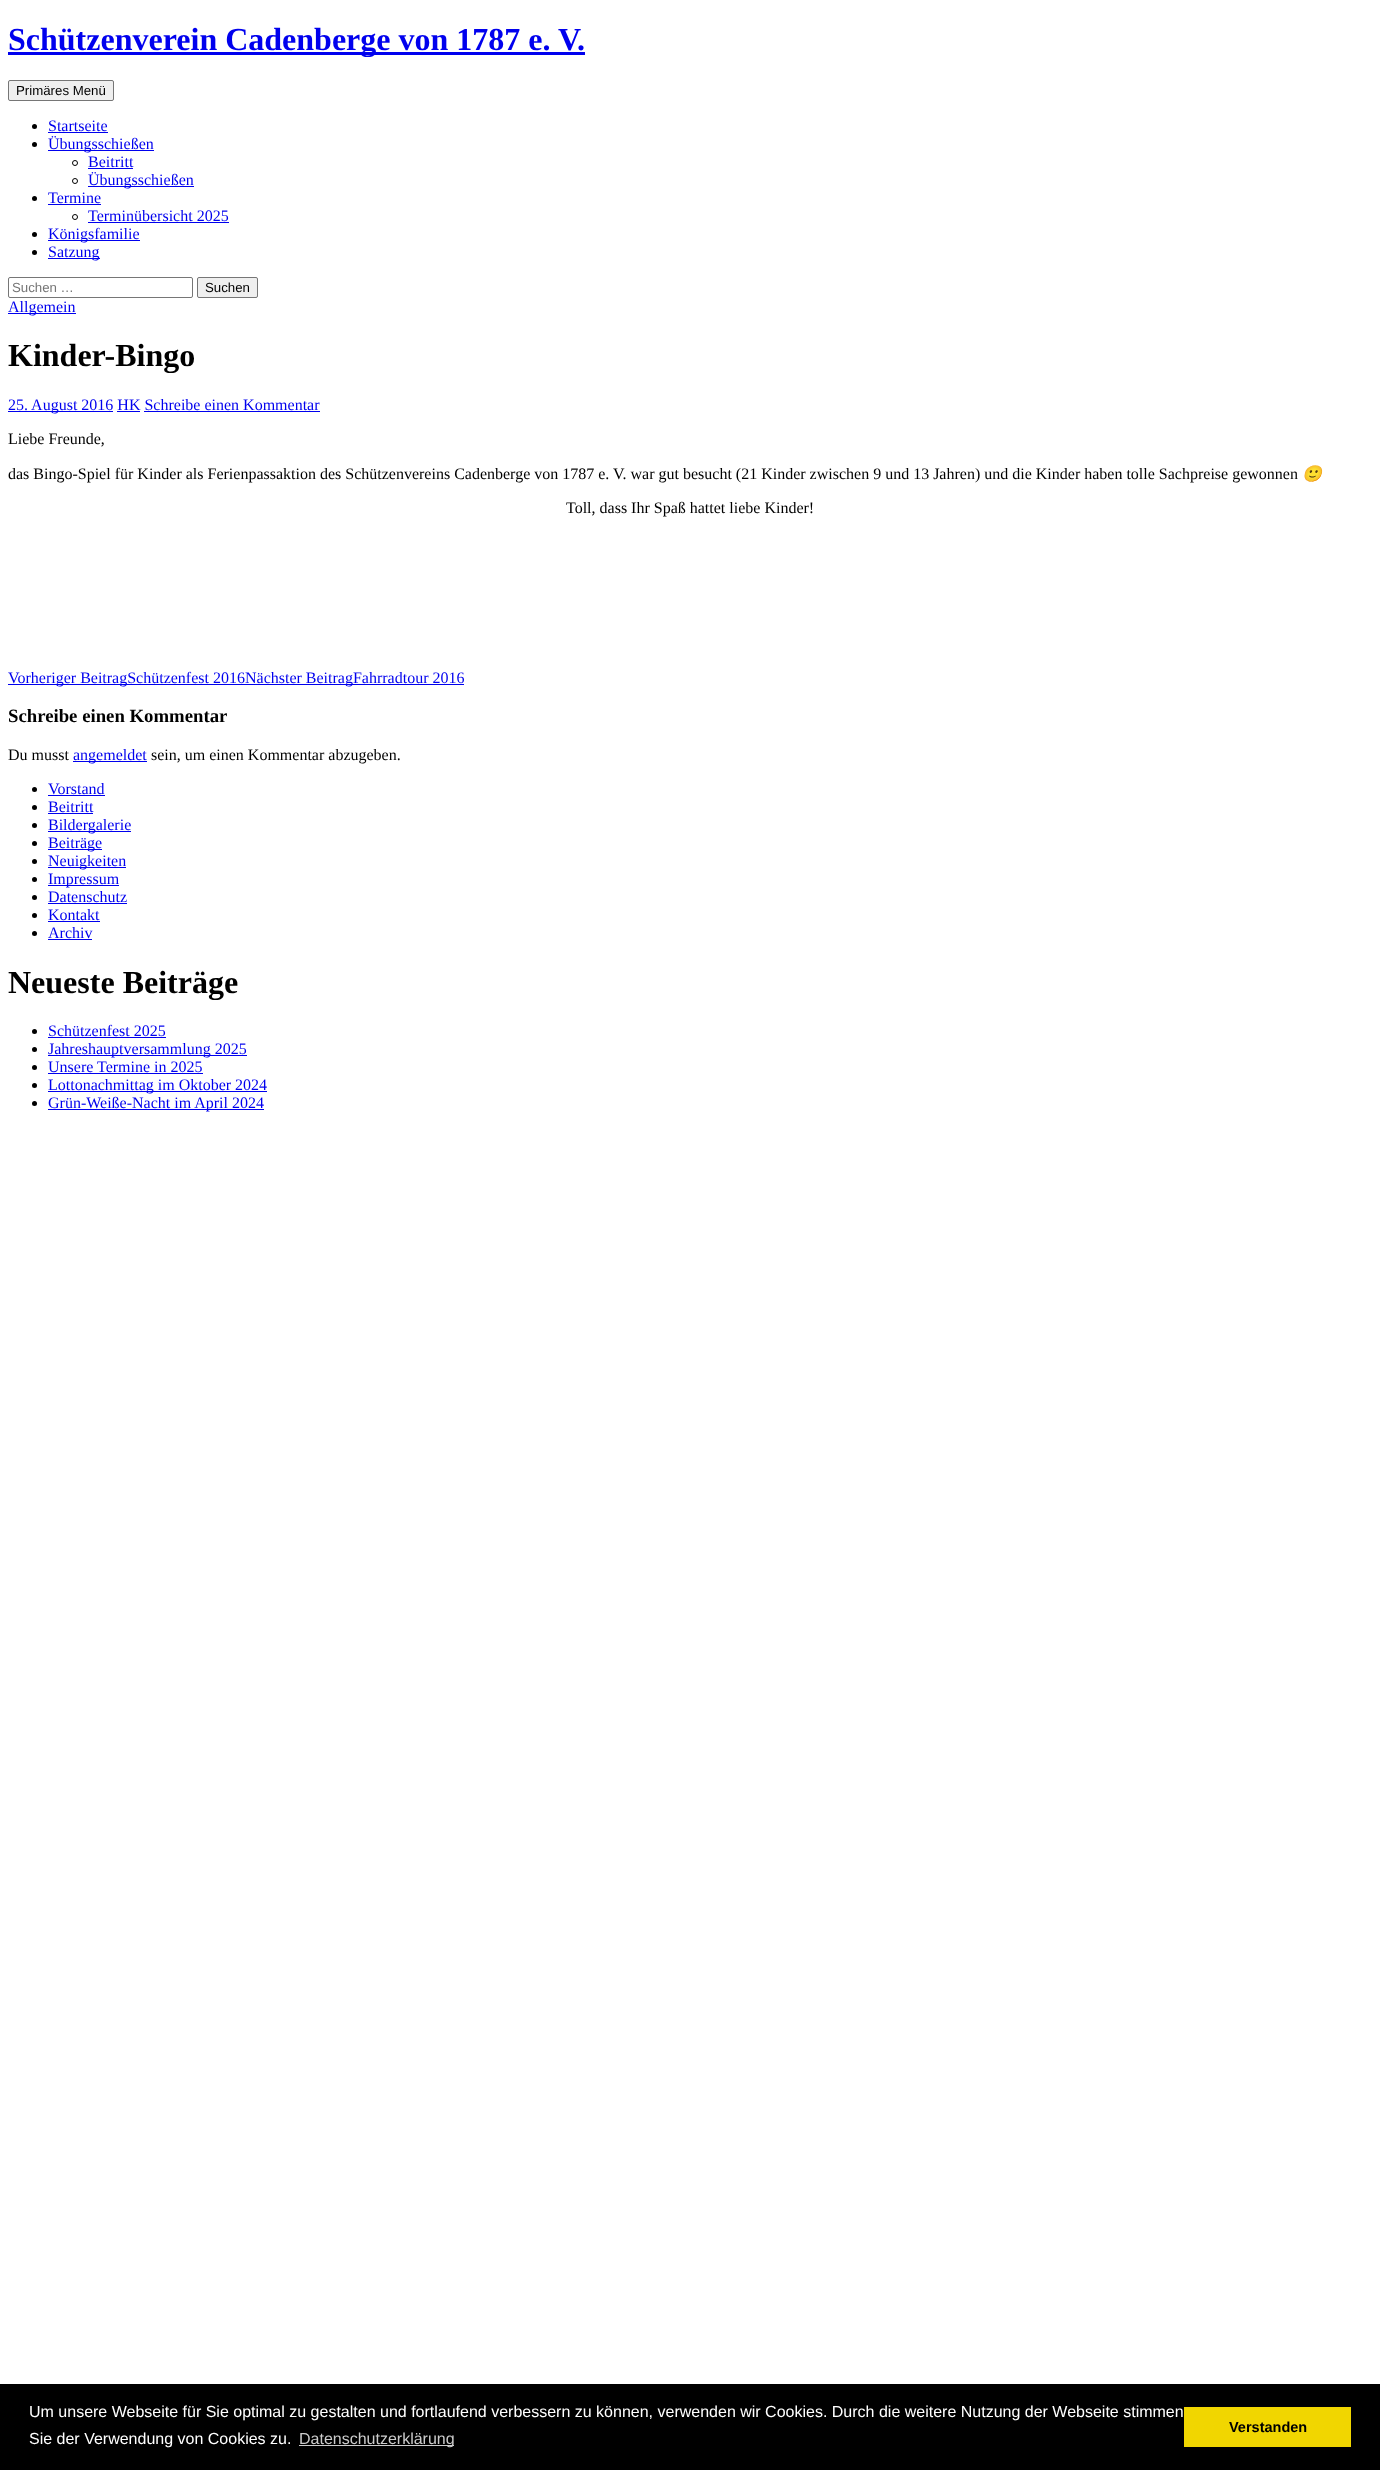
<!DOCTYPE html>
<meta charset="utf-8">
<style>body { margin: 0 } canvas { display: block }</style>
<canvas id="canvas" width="1380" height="2470"></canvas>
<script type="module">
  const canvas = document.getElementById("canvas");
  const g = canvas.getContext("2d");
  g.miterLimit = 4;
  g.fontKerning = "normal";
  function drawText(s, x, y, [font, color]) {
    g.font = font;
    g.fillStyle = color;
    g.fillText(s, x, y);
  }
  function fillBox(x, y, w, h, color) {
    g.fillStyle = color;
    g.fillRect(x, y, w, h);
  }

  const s1 = ["bold 32px Liberation Serif", "#0000EE"];
  const s2 = ["13.25px Liberation Sans", "#000000"];
  const s3 = ["16px Liberation Serif", "#0000EE"];
  const s4 = ["13.25px Liberation Sans", "#757575"];
  const s5 = ["bold 32px Liberation Serif", "#000000"];
  const s6 = ["16px Liberation Serif", "#000000"];
  const s7 = ["italic 16px Noto Color Emoji", "#000000"];
  const s8 = ["bold 18.75px Liberation Serif", "#000000"];
  const s9 = ["16px Liberation Sans", "#FFFFFF"];
  const s10 = ["16px Liberation Sans", "#CCCCCC"];
  const s11 = ["bold 14.5px Liberation Sans", "#000000"];

  fillBox(0, 0, 1380, 2470, "#FFFFFF");
  fillBox(8, 52, 577, 3, "#0000EE");
  drawText("Schützenverein Cadenberge von 1787 e. V.", 8, 50, s1);
  g.fillStyle = "#EFEFEF";
  g.beginPath();
  g.roundRect(8.5, 80.5, 105, 20, 1.5);
  g.fill();
  g.strokeStyle = "#767676";
  g.stroke();
  drawText("Primäres Menü", 16, 95, s2);
  g.beginPath();
  g.arc(34.5, 126.5, 2.5, 0, Math.PI * 2);
  g.fill();
  drawText("Startseite", 48, 131, s3);
  fillBox(48, 132, 60, 1, "#0000EE");
  g.fillStyle = "#000000";
  g.beginPath();
  g.arc(34.5, 144.5, 2.5, 0, Math.PI * 2);
  g.fill();
  fillBox(48, 150, 106, 1, "#0000EE");
  drawText("Übungsschießen", 48, 149, s3);
  g.beginPath();
  g.arc(75, 163, 2.5, 0, Math.PI * 2);
  g.strokeStyle = "#000000";
  g.stroke();
  drawText("Beitritt", 88, 167, s3);
  fillBox(88, 168, 45, 1, "#0000EE");
  g.beginPath();
  g.arc(75, 181, 2.5, 0, Math.PI * 2);
  g.stroke();
  fillBox(88, 186, 106, 1, "#0000EE");
  drawText("Übungsschießen", 88, 185, s3);
  g.fillStyle = "#000000";
  g.beginPath();
  g.arc(34.5, 198.5, 2.5, 0, Math.PI * 2);
  g.fill();
  drawText("Termine", 48, 203, s3);
  fillBox(48, 204, 53, 1, "#0000EE");
  g.beginPath();
  g.arc(75, 217, 2.5, 0, Math.PI * 2);
  g.stroke();
  drawText("Terminübersicht 2025", 88, 221, s3);
  fillBox(88, 222, 141, 1, "#0000EE");
  g.fillStyle = "#000000";
  g.beginPath();
  g.arc(34.5, 234.5, 2.5, 0, Math.PI * 2);
  g.fill();
  fillBox(48, 240, 92, 1, "#0000EE");
  drawText("Königsfamilie", 48, 239, s3);
  g.fillStyle = "#000000";
  g.beginPath();
  g.arc(34.5, 252.5, 2.5, 0, Math.PI * 2);
  g.fill();
  fillBox(48, 258, 52, 1, "#0000EE");
  drawText("Satzung", 48, 257, s3);
  g.beginPath();
  g.roundRect(8.5, 277.5, 184, 20, 1.5);
  g.strokeStyle = "#767676";
  g.stroke();
  drawText("Suchen …", 12, 292, s4);
  g.fillStyle = "#EFEFEF";
  g.beginPath();
  g.roundRect(197.5, 277.5, 60, 20, 1.5);
  g.fill();
  g.stroke();
  drawText("Suchen", 205, 292, s2);
  fillBox(8, 313, 68, 1, "#0000EE");
  drawText("Allgemein", 8, 312, s3);
  drawText("Kinder-Bingo", 8, 366, s5);
  fillBox(8, 411, 105, 1, "#0000EE");
  drawText("25. August 2016 HK Schreibe einen Kommentar", 8, 410, s3);
  fillBox(117, 411, 23, 1, "#0000EE");
  fillBox(144, 411, 176, 1, "#0000EE");
  drawText("Liebe Freunde,", 8, 444, s6);
  drawText("das Bingo-Spiel für Kinder als Ferienpassaktion des Schützenvereins Cadenberge von 1787 e. V. war gut besucht (21 Kinder zwischen 9 und 13 Jahren) und die Kinder haben tolle Sachpreise gewonnen", 8, 479, s6);
  drawText("🙂", 1302, 479, s7);
  drawText("Toll, dass Ihr Spaß hattet liebe Kinder!", 566, 513, s6);
  fillBox(8, 684, 456, 1, "#0000EE");
  drawText("Vorheriger BeitragSchützenfest 2016Nächster BeitragFahrradtour 2016", 8, 683, s3);
  drawText("Schreibe einen Kommentar", 8, 722, s8);
  drawText("Du musst", 8, 760, s6);
  fillBox(73, 761, 74, 1, "#0000EE");
  drawText("angemeldet", 73, 760, s3);
  drawText("sein, um einen Kommentar abzugeben.", 151, 760, s6);
  g.beginPath();
  g.arc(34.5, 789.5, 2.5, 0, Math.PI * 2);
  g.fill();
  drawText("Vorstand", 48, 794, s3);
  fillBox(48, 795, 57, 1, "#0000EE");
  g.fillStyle = "#000000";
  g.beginPath();
  g.arc(34.5, 807.5, 2.5, 0, Math.PI * 2);
  g.fill();
  drawText("Beitritt", 48, 812, s3);
  fillBox(48, 813, 45, 1, "#0000EE");
  g.fillStyle = "#000000";
  g.beginPath();
  g.arc(34.5, 825.5, 2.5, 0, Math.PI * 2);
  g.fill();
  fillBox(48, 831, 83, 1, "#0000EE");
  drawText("Bildergalerie", 48, 830, s3);
  g.fillStyle = "#000000";
  g.beginPath();
  g.arc(34.5, 843.5, 2.5, 0, Math.PI * 2);
  g.fill();
  fillBox(48, 849, 54, 1, "#0000EE");
  drawText("Beiträge", 48, 848, s3);
  g.fillStyle = "#000000";
  g.beginPath();
  g.arc(34.5, 861.5, 2.5, 0, Math.PI * 2);
  g.fill();
  fillBox(48, 867, 78, 1, "#0000EE");
  drawText("Neuigkeiten", 48, 866, s3);
  g.fillStyle = "#000000";
  g.beginPath();
  g.arc(34.5, 879.5, 2.5, 0, Math.PI * 2);
  g.fill();
  fillBox(48, 885, 71, 1, "#0000EE");
  drawText("Impressum", 48, 884, s3);
  g.fillStyle = "#000000";
  g.beginPath();
  g.arc(34.5, 897.5, 2.5, 0, Math.PI * 2);
  g.fill();
  drawText("Datenschutz", 48, 902, s3);
  fillBox(48, 903, 79, 1, "#0000EE");
  g.fillStyle = "#000000";
  g.beginPath();
  g.arc(34.5, 915.5, 2.5, 0, Math.PI * 2);
  g.fill();
  drawText("Kontakt", 48, 920, s3);
  fillBox(48, 921, 52, 1, "#0000EE");
  g.fillStyle = "#000000";
  g.beginPath();
  g.arc(34.5, 933.5, 2.5, 0, Math.PI * 2);
  g.fill();
  drawText("Archiv", 48, 938, s3);
  fillBox(48, 939, 44, 1, "#0000EE");
  drawText("Neueste Beiträge", 8, 993, s5);
  g.beginPath();
  g.arc(34.5, 1031.5, 2.5, 0, Math.PI * 2);
  g.fill();
  drawText("Schützenfest 2025", 48, 1036, s3);
  fillBox(48, 1037, 118, 1, "#0000EE");
  g.fillStyle = "#000000";
  g.beginPath();
  g.arc(34.5, 1049.5, 2.5, 0, Math.PI * 2);
  g.fill();
  fillBox(48, 1055, 199, 1, "#0000EE");
  drawText("Jahreshauptversammlung 2025", 48, 1054, s3);
  g.fillStyle = "#000000";
  g.beginPath();
  g.arc(34.5, 1067.5, 2.5, 0, Math.PI * 2);
  g.fill();
  drawText("Unsere Termine in 2025", 48, 1072, s3);
  fillBox(48, 1073, 155, 1, "#0000EE");
  g.fillStyle = "#000000";
  g.beginPath();
  g.arc(34.5, 1085.5, 2.5, 0, Math.PI * 2);
  g.fill();
  fillBox(48, 1091, 219, 1, "#0000EE");
  drawText("Lottonachmittag im Oktober 2024", 48, 1090, s3);
  g.fillStyle = "#000000";
  g.beginPath();
  g.arc(34.5, 1103.5, 2.5, 0, Math.PI * 2);
  g.fill();
  fillBox(48, 1109, 216, 1, "#0000EE");
  drawText("Grün-Weiße-Nacht im April 2024", 48, 1108, s3);
  fillBox(0, 2384, 1380, 86, "#000000");
  drawText("Um unsere Webseite für Sie optimal zu gestalten und fortlaufend verbessern zu können, verwenden wir Cookies. Durch die weitere Nutzung der Webseite stimmen", 29, 2417, s9);
  drawText("Sie der Verwendung von Cookies zu.", 29, 2444, s9);
  fillBox(299, 2445, 155, 1, "#CCCCCC");
  drawText("Datenschutzerklärung", 299, 2444, s10);
  fillBox(1184, 2407, 167, 40, "#F1D600");
  drawText("Verstanden", 1229, 2432, s11);
</script>
